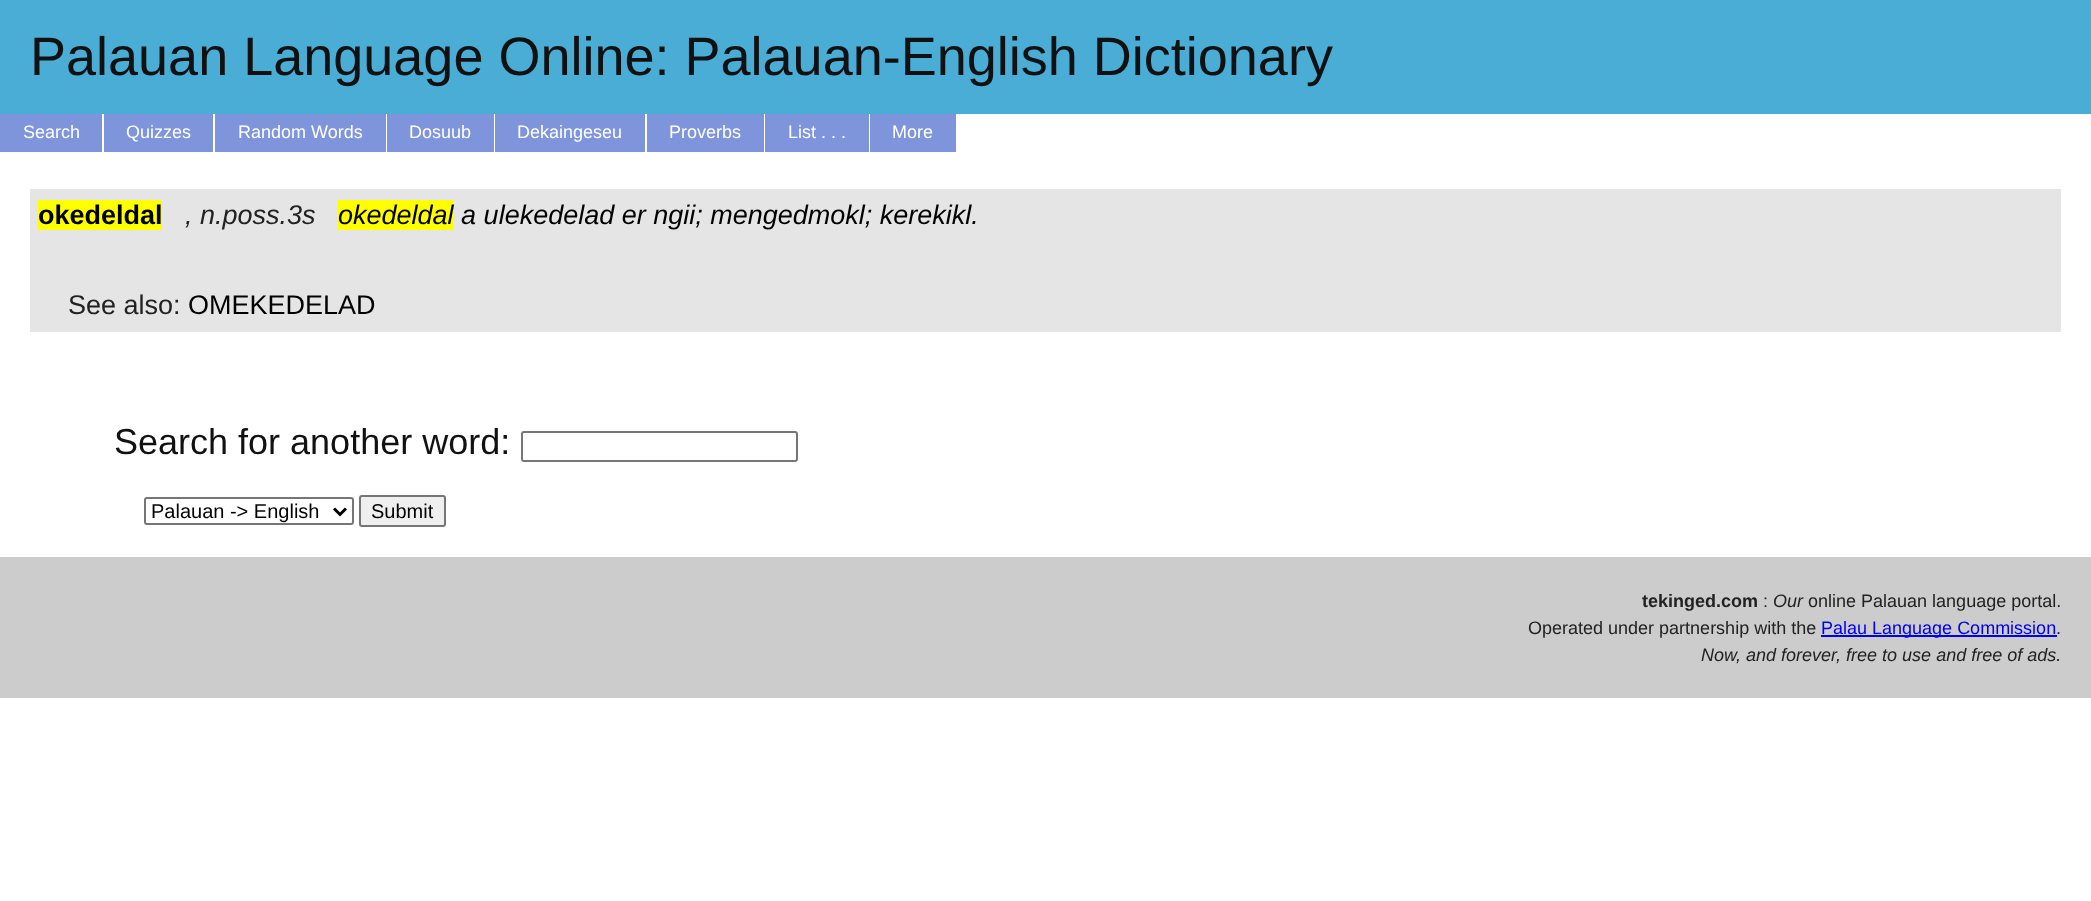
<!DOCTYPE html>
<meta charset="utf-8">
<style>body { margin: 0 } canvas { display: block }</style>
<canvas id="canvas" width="2091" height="901"></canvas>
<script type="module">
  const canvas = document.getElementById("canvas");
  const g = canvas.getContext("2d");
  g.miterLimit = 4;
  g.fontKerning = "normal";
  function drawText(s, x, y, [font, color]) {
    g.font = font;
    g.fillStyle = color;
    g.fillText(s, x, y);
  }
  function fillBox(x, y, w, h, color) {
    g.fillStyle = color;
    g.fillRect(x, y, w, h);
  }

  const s1 = ["54px Liberation Sans", "#111111"];
  const s2 = ["18px Liberation Sans", "#FFFFFF"];
  const s3 = ["bold 27px Liberation Sans", "#000000"];
  const s4 = ["italic 27px Liberation Sans", "#222222"];
  const s5 = ["italic 27px Liberation Sans", "#000000"];
  const s6 = ["27px Liberation Sans", "#222222"];
  const s7 = ["27px Liberation Sans", "#000000"];
  const s8 = ["36px Liberation Sans", "#111111"];
  const s9 = ["20px Liberation Sans", "#000000"];
  const s10 = ["bold 18px Liberation Sans", "#222222"];
  const s11 = ["18px Liberation Sans", "#222222"];
  const s12 = ["italic 18px Liberation Sans", "#222222"];
  const s13 = ["18px Liberation Sans", "#0000EE"];

  fillBox(0, 0, 2091, 901, "#FFFFFF");
  fillBox(0, 0, 2091, 114, "#4AADD6");
  drawText("Palauan Language Online: Palauan-English Dictionary", 30, 75, s1);
  fillBox(0, 114, 102, 38, "#7F95DB");
  drawText("Search", 23, 138, s2);
  fillBox(104, 114, 109, 38, "#7F95DB");
  drawText("Quizzes", 126, 138, s2);
  fillBox(215, 114, 171, 38, "#7F95DB");
  drawText("Random Words", 238, 138, s2);
  fillBox(387, 114, 107, 38, "#7F95DB");
  drawText("Dosuub", 409, 138, s2);
  fillBox(495, 114, 150, 38, "#7F95DB");
  drawText("Dekaingeseu", 517, 138, s2);
  fillBox(647, 114, 117, 38, "#7F95DB");
  drawText("Proverbs", 669, 138, s2);
  fillBox(765, 114, 104, 38, "#7F95DB");
  drawText("List . . .", 788, 138, s2);
  fillBox(870, 114, 86, 38, "#7F95DB");
  drawText("More", 892, 138, s2);
  fillBox(30, 189, 2031, 143, "#E5E5E5");
  fillBox(38, 200, 124, 30, "#FFFF00");
  drawText("okedeldal", 38, 224, s3);
  drawText(", n.poss.3s", 185, 224, s4);
  fillBox(338, 200, 115, 30, "#FFFF00");
  drawText("okedeldal a ulekedelad er ngii; mengedmokl; kerekikl.", 338, 224, s5);
  drawText("See also:", 68, 314, s6);
  drawText("OMEKEDELAD", 188, 314, s7);
  drawText("Search for another word:", 114, 454, s8);
  g.beginPath();
  g.roundRect(522, 432, 275, 29, 2);
  g.strokeStyle = "#767676";
  g.lineWidth = 2;
  g.stroke();
  g.beginPath();
  g.roundRect(145, 498, 208, 26, 2);
  g.stroke();
  g.beginPath();
  g.moveTo(334, 508.5);
  g.lineTo(340, 514.5);
  g.lineTo(346, 508.5);
  g.strokeStyle = "#000000";
  g.lineWidth = 3;
  g.stroke();
  drawText("Palauan -> English", 151, 518, s9);
  g.fillStyle = "#EFEFEF";
  g.beginPath();
  g.roundRect(360, 496, 85, 30, 2);
  g.fill();
  g.strokeStyle = "#767676";
  g.lineWidth = 2;
  g.stroke();
  drawText("Submit", 371, 518, s9);
  fillBox(0, 557, 2091, 141, "#CCCCCC");
  drawText("tekinged.com", 1642, 607, s10);
  drawText(":", 1763, 607, s11);
  drawText("Our", 1773, 607, s12);
  drawText("online Palauan language portal.", 1808, 607, s11);
  drawText("Operated under partnership with the", 1528, 634, s11);
  fillBox(1821, 635, 236, 2, "#0000EE");
  drawText("Palau Language Commission", 1821, 634, s13);
  drawText(".", 2056, 634, s11);
  drawText("Now, and forever, free to use and free of ads.", 1701, 661, s12);
</script>
